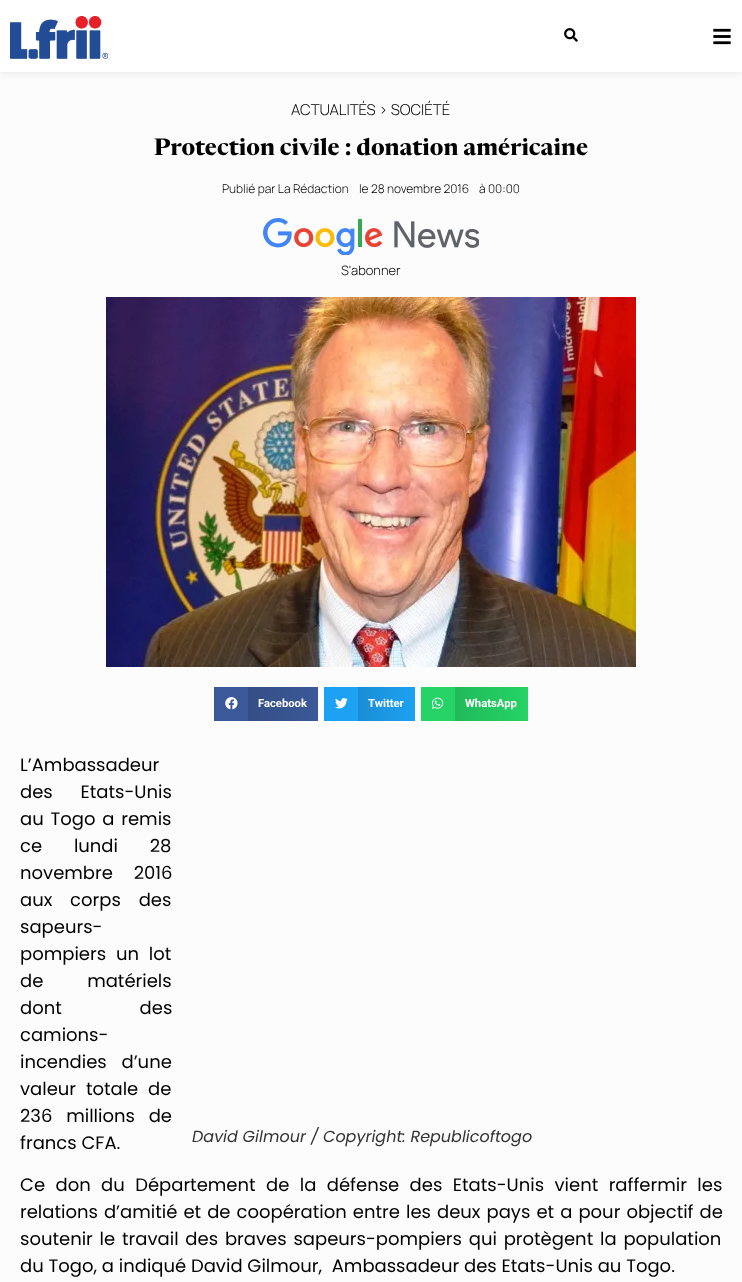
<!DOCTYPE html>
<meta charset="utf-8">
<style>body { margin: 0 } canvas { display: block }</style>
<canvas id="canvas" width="742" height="1282"></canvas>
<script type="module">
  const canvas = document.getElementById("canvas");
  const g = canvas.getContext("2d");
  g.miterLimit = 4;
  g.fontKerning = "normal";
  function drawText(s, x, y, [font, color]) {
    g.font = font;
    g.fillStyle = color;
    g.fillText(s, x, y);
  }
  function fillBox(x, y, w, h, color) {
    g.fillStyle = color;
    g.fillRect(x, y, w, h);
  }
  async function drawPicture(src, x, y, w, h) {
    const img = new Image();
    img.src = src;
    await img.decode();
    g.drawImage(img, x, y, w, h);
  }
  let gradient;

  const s1 = ["300 15px Manrope", "#000000"];
  const s2 = ["bold 23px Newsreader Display", "#000000"];
  const s3 = ["300 12px Manrope", "#000000"];
  const s4 = ["300 13px Manrope", "#000000"];
  const s5 = ["bold 11.25px Roboto", "#FFFFFF"];
  const s6 = ["18px Poppins", "#000000"];
  const s7 = ["italic 16px Poppins", "#333333"];

  fillBox(0, 0, 742, 1282, "#FCFCFC");
  g.fillStyle = "rgba(0, 0, 0, 0.1)";
  g.filter = "blur(5px)";
  g.beginPath();
  g.rect(0, 0, 742, 72);
  g.fill();
  g.filter = "none";
  fillBox(0, 0, 742, 72, "#FFFFFF");
  await drawPicture("pic1.png", 10, 16, 98, 43);
  await drawPicture("pic2.png", 564, 28, 14, 14);
  await drawPicture("pic3.png", 713, 28, 18, 17);
  drawText("ACTUALITÉS > SOCIÉTÉ", 291, 115, s1);
  drawText("Protection civile : donation américaine", 154, 155, s2);
  drawText("Publié par La Rédaction", 222, 193, s3);
  drawText("le 28 novembre 2016", 359, 193, s3);
  drawText("à 00:00", 479, 193, s3);
  await drawPicture("pic4.png", 263, 218, 216, 37);
  drawText("S'abonner", 341, 275, s4);
  await drawPicture("pic5.png", 106, 297, 530, 370);
  fillBox(214, 687, 34, 34, "#3B5998");
  await drawPicture("pic6.png", 225, 697, 13, 13);
  gradient = g.createLinearGradient(248, 704, 318, 704);
  gradient.addColorStop(0, "#344E86");
  gradient.addColorStop(1, "#3B5998");
  g.fillStyle = gradient;
  g.fillRect(248, 687, 70, 34);
  drawText("Facebook", 258, 707, s5);
  fillBox(324, 687, 34, 34, "#1DA1F2");
  await drawPicture("pic7.png", 335, 698, 13, 11);
  gradient = g.createLinearGradient(358, 704, 415, 704);
  gradient.addColorStop(0, "#1A8ED5");
  gradient.addColorStop(1, "#1DA1F2");
  g.fillStyle = gradient;
  g.fillRect(358, 687, 57, 34);
  drawText("Twitter", 368, 707, s5);
  fillBox(421, 687, 34, 34, "#25D366");
  await drawPicture("pic8.png", 432, 697, 12, 12);
  gradient = g.createLinearGradient(455, 704, 528, 704);
  gradient.addColorStop(0, "#21BA5A");
  gradient.addColorStop(1, "#25D366");
  g.fillStyle = gradient;
  g.fillRect(455, 687, 73, 34);
  drawText("WhatsApp", 465, 707, s5);
  drawText("L’Ambassadeur", 20, 771, s6);
  g.wordSpacing = "23px";
  drawText("des Etats-Unis", 20, 798, s6);
  g.wordSpacing = "2px";
  drawText("au Togo a remis", 20, 825, s6);
  g.wordSpacing = "27px";
  drawText("ce lundi 28", 20, 852, s6);
  g.wordSpacing = "16px";
  drawText("novembre 2016", 20, 879, s6);
  g.wordSpacing = "13px";
  drawText("aux corps des", 20, 906, s6);
  g.wordSpacing = "0px";
  drawText("sapeurs-", 20, 933, s6);
  g.wordSpacing = "5px";
  drawText("pompiers un lot", 20, 960, s6);
  g.wordSpacing = "39px";
  drawText("de matériels", 20, 987, s6);
  g.wordSpacing = "73px";
  drawText("dont des", 20, 1014, s6);
  g.wordSpacing = "0px";
  drawText("camions-", 20, 1041, s6);
  g.wordSpacing = "10px";
  drawText("incendies d’une", 20, 1068, s6);
  g.wordSpacing = "5px";
  drawText("valeur totale de", 20, 1095, s6);
  g.wordSpacing = "9px";
  drawText("236 millions de", 20, 1122, s6);
  g.wordSpacing = "0px";
  drawText("francs CFA.", 20, 1149, s6);
  drawText("David Gilmour / Copyright: Republicoftogo", 192, 1142, s7);
  g.wordSpacing = "5.6px";
  drawText("Ce don du Département de la défense des Etats-Unis vient raffermir les", 20, 1191, s6);
  g.wordSpacing = "1.25px";
  drawText("relations d’amitié et de coopération entre les deux pays et a pour objectif de", 20, 1218, s6);
  g.wordSpacing = "2px";
  drawText("soutenir le travail des braves sapeurs-pompiers qui protègent la population", 20, 1245, s6);
  g.wordSpacing = "0px";
  drawText("du Togo, a indiqué David Gilmour,  Ambassadeur des Etats-Unis au Togo.", 20, 1272, s6);
</script>
